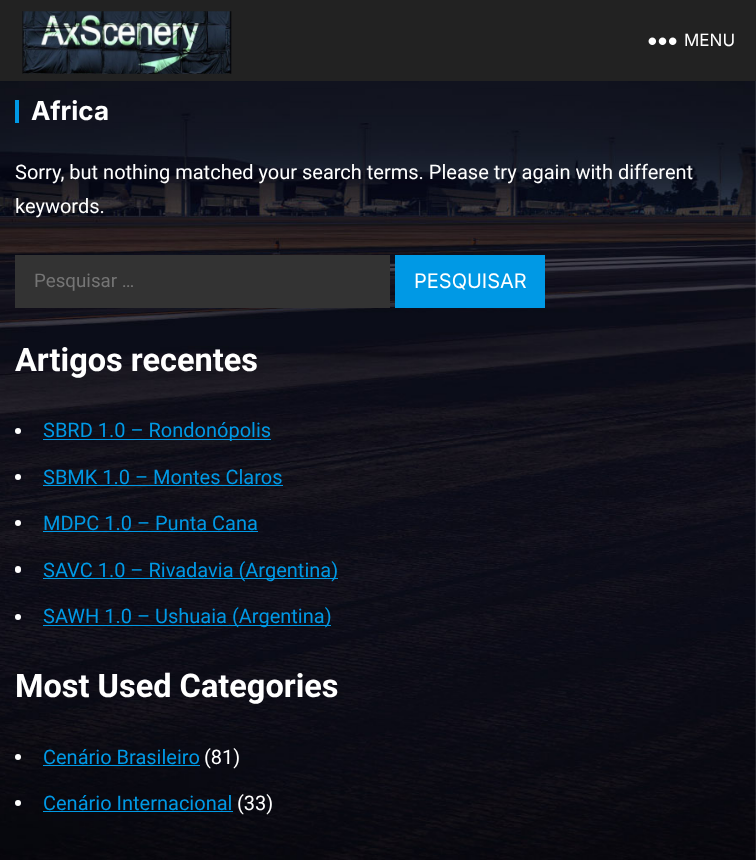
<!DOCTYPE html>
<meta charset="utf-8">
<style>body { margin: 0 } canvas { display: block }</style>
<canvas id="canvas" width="756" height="860"></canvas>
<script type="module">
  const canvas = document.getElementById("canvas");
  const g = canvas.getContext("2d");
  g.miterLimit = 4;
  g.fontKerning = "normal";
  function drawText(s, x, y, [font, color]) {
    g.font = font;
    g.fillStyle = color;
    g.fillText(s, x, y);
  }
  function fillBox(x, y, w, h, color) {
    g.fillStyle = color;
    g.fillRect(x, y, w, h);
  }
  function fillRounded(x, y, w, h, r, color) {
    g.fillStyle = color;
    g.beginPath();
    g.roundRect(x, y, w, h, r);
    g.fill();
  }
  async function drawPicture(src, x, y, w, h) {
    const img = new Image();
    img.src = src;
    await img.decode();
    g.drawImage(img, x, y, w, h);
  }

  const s1 = ["17px Inter", "#FFFFFF"];
  const s2 = ["bold 26px Inter", "#FFFFFF"];
  const s3 = ["20px Roboto", "#FFFFFF"];
  const s4 = ["18.75px Roboto", "#757575"];
  const s5 = ["20px Inter", "#FFFFFF"];
  const s6 = ["bold 32.5px Roboto", "#FFFFFF"];
  const s7 = ["20px Roboto", "#0099E5"];

  fillBox(0, 0, 756, 860, "#FFFFFF");
  await drawPicture("pic1.png", 0, 81, 756, 779);
  fillBox(0, 0, 756, 81, "#222222");
  await drawPicture("pic2.png", 22, 11, 210, 63);
  await drawPicture("pic3.png", 648, 37, 29, 8);
  drawText("MENU", 684, 46, s1);
  fillBox(15, 100, 4, 23, "#0099E5");
  drawText("Africa", 31, 120, s2);
  drawText("Sorry, but nothing matched your search terms. Please try again with different", 15, 179, s3);
  drawText("keywords.", 15, 213, s3);
  fillBox(15, 255, 375, 53, "#333333");
  drawText("Pesquisar …", 34, 287, s4);
  fillBox(395, 255, 150, 53, "#0099E5");
  drawText("PESQUISAR", 414, 288, s5);
  drawText("Artigos recentes", 15, 371, s6);
  g.beginPath();
  g.arc(18, 431, 3, 0, Math.PI * 2);
  g.fill();
  fillBox(43, 439, 228, 1, "#0099E5");
  drawText("SBRD 1.0 – Rondonópolis", 43, 437, s7);
  g.fillStyle = "#FFFFFF";
  g.beginPath();
  g.arc(18, 477, 3, 0, Math.PI * 2);
  g.fill();
  drawText("SBMK 1.0 – Montes Claros", 43, 484, s7);
  fillBox(43, 485, 240, 1, "#0099E5");
  g.fillStyle = "#FFFFFF";
  g.beginPath();
  g.arc(18, 523, 3, 0, Math.PI * 2);
  g.fill();
  drawText("MDPC 1.0 – Punta Cana", 43, 530, s7);
  fillBox(43, 531, 215, 1, "#0099E5");
  fillRounded(15, 566, 6, 7, 3, "#FFFFFF");
  fillBox(43, 578, 295, 1, "#0099E5");
  drawText("SAVC 1.0 – Rivadavia (Argentina)", 43, 577, s7);
  g.fillStyle = "#FFFFFF";
  g.beginPath();
  g.arc(18, 617, 3, 0, Math.PI * 2);
  g.fill();
  fillBox(43, 625, 288, 1, "#0099E5");
  drawText("SAWH 1.0 – Ushuaia (Argentina)", 43, 623, s7);
  drawText("Most Used Categories", 15, 697, s6);
  g.beginPath();
  g.arc(18, 757, 3, 0, Math.PI * 2);
  g.fill();
  drawText("Cenário Brasileiro", 43, 764, s7);
  fillBox(43, 765, 157, 1, "#0099E5");
  drawText("(81)", 204, 764, s3);
  g.beginPath();
  g.arc(18, 803, 3, 0, Math.PI * 2);
  g.fill();
  drawText("Cenário Internacional", 43, 810, s7);
  fillBox(43, 811, 190, 1, "#0099E5");
  drawText("(33)", 237, 810, s3);
</script>
